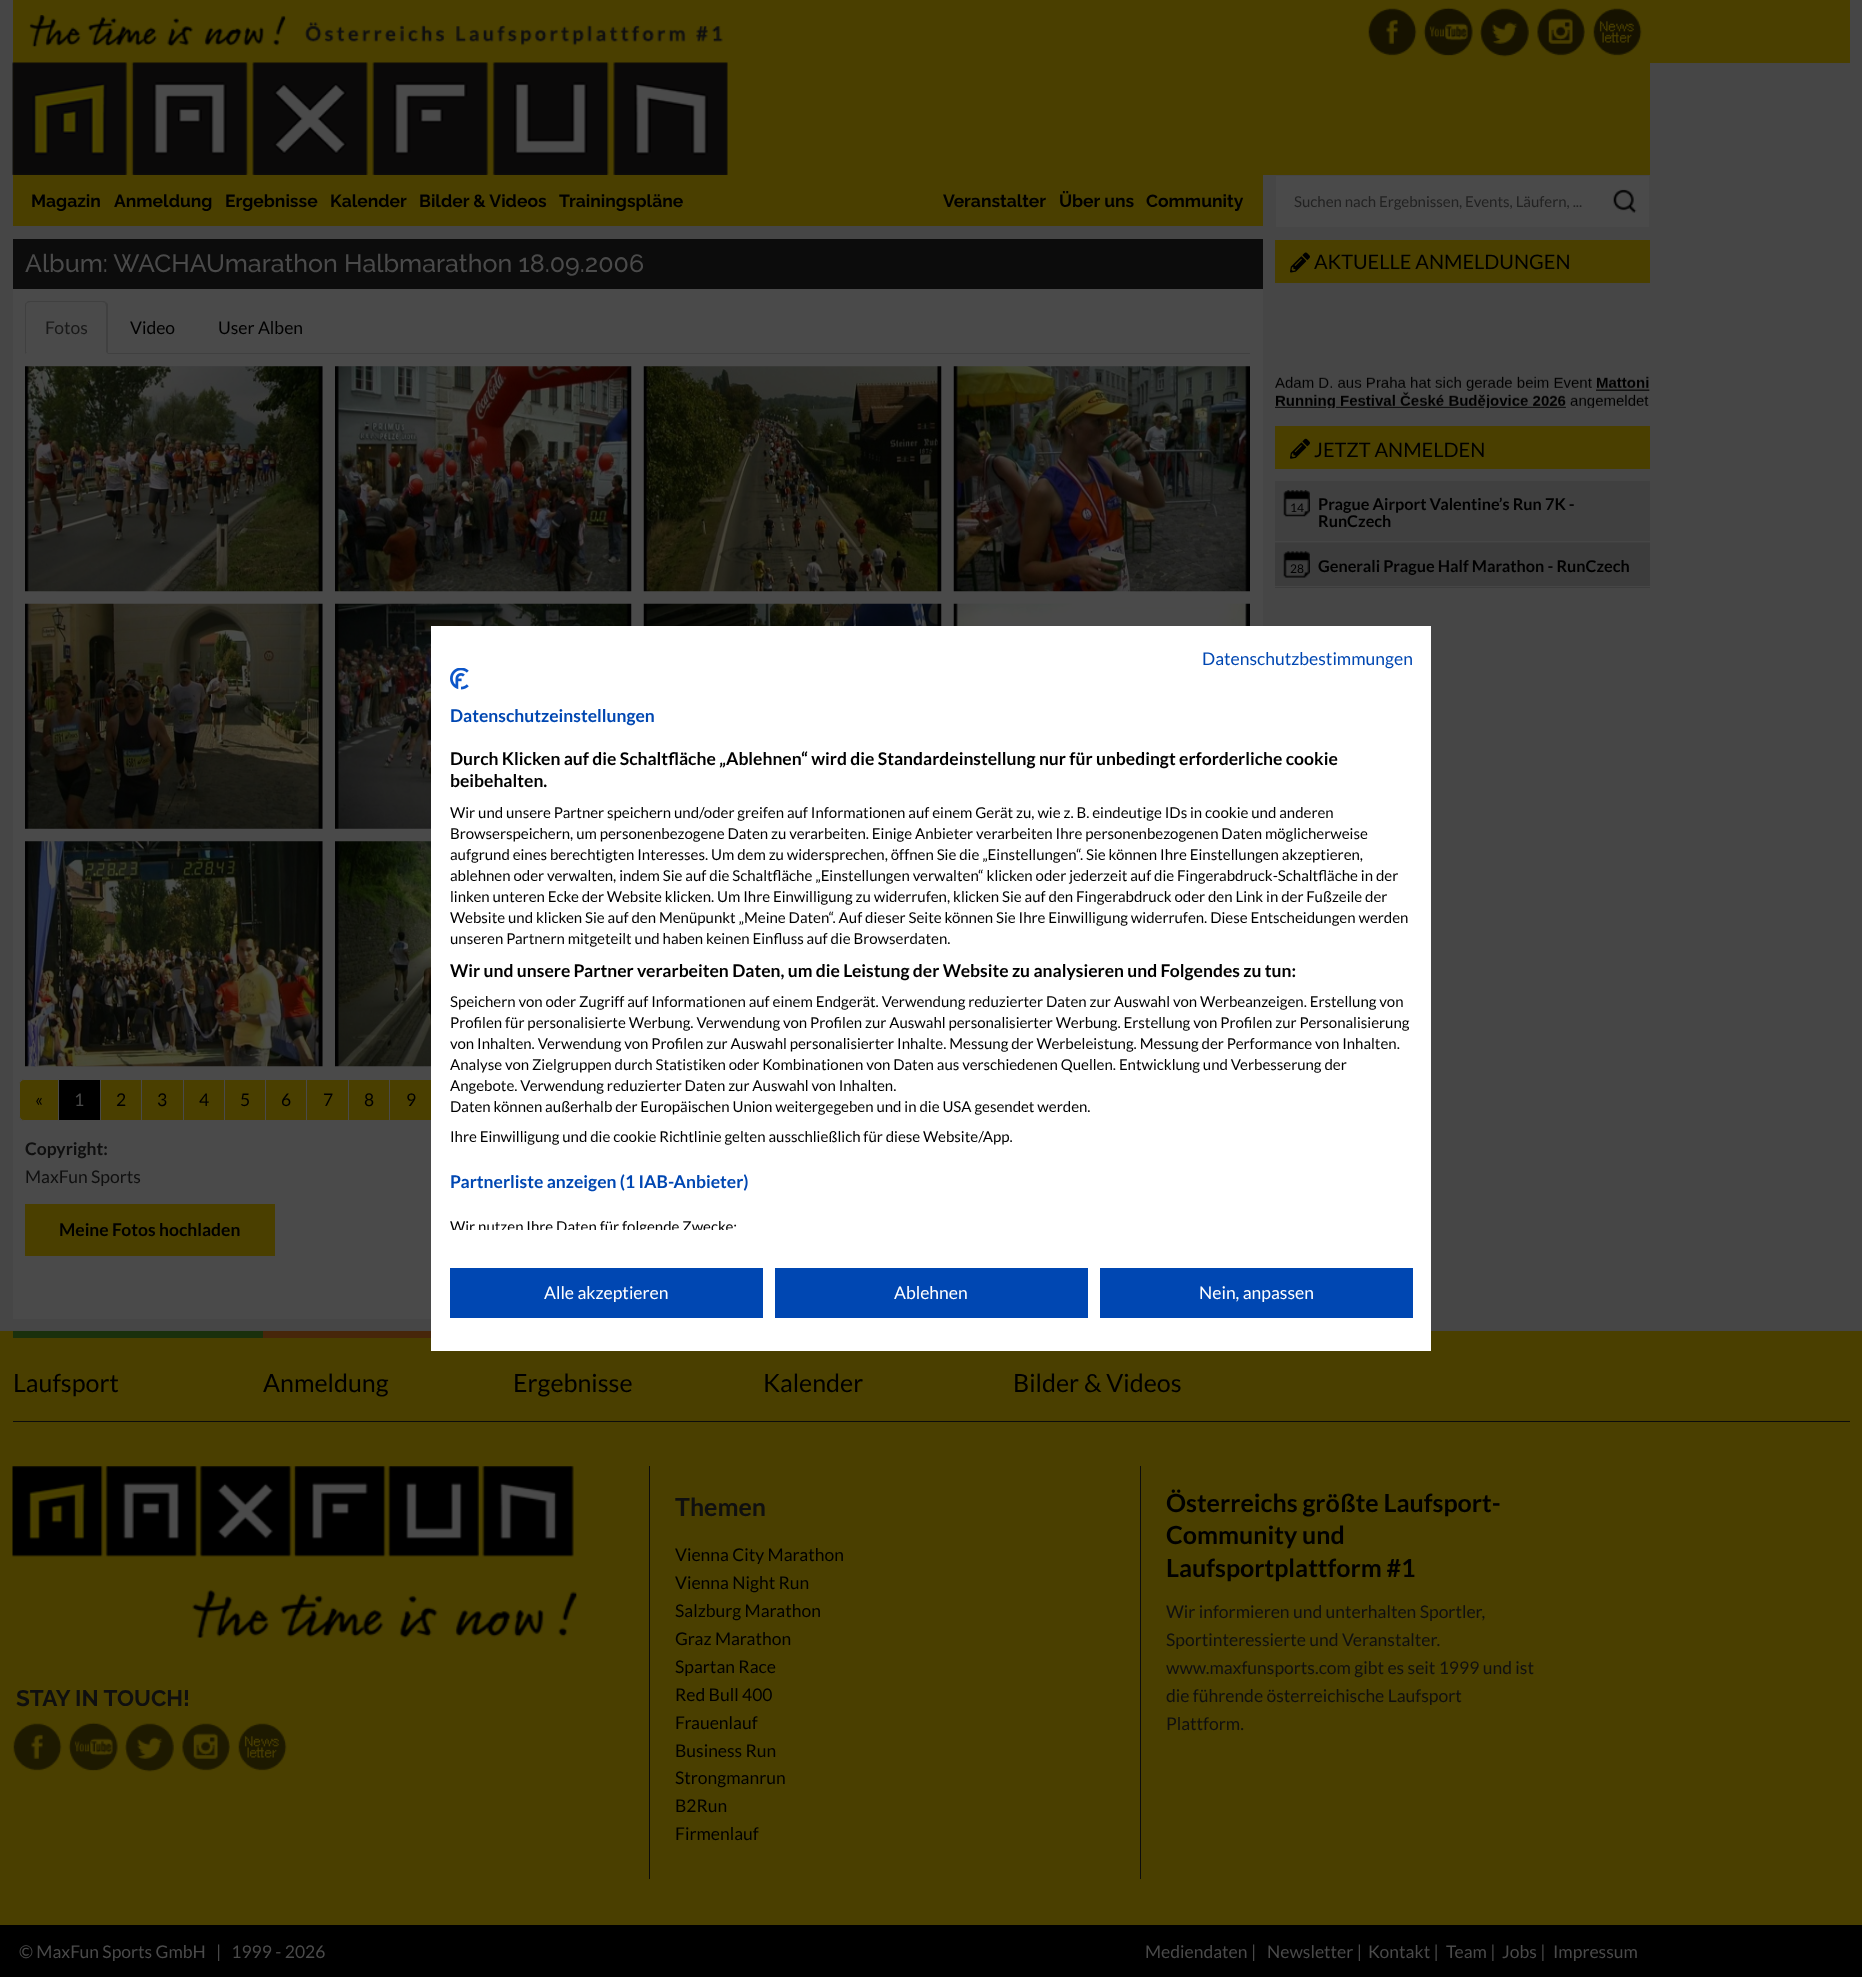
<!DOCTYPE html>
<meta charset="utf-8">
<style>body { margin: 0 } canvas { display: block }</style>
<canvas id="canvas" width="1862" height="1977"></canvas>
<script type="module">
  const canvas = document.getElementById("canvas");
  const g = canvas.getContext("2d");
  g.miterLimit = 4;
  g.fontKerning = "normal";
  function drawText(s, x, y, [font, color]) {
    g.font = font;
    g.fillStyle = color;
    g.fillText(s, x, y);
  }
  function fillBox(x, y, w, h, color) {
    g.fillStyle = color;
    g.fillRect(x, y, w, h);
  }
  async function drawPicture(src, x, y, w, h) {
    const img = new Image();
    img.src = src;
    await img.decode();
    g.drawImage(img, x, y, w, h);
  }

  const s1 = ["bold 17.5px Raleway", "#000000"];
  const s2 = ["500 25px Raleway", "#4A4A4A"];
  const s3 = ["17.5px Lato", "#191919"];
  const s4 = ["17.5px Lato", "#000000"];
  const s5 = ["17.5px Lato", "#4A4A4A"];
  const s6 = ["bold 17.5px Lato", "#0F0F0F"];
  const s7 = ["17.5px Lato", "#0F0F0F"];
  const s8 = ["bold 17.5px Lato", "#000000"];
  const s9 = ["15px Lato", "#222222"];
  const s10 = ["20px Lato", "#000000"];
  const s11 = ["12px Lato", "#000000"];
  const s12 = ["bold 16.25px Lato", "#000000"];
  const s13 = ["17.5px Lato", "#0047B2"];
  const s14 = ["bold 17.5px Lato", "#0047B2"];
  const s15 = ["15px Lato", "#000000"];
  const s16 = ["17.5px Lato", "#FFFFFF"];
  const s17 = ["25px Lato", "#000000"];
  const s18 = ["bold 22.5px Raleway", "#0F0F0F"];
  const s19 = ["bold 25px Lato", "#0F0F0F"];
  const s20 = ["bold 25px Lato", "#000000"];

  fillBox(0, 0, 1862, 1977, "#464646");
  fillBox(13, 0, 1837, 63, "#4A3F00");
  await drawPicture("pic1.png", 29, 15, 694, 32);
  await drawPicture("pic2.png", 1368, 8, 49, 48);
  await drawPicture("pic3.png", 1423, 7, 50, 49);
  await drawPicture("pic4.png", 1480, 8, 49, 49);
  await drawPicture("pic5.png", 1537, 8, 48, 48);
  await drawPicture("pic6.png", 1593, 8, 49, 48);
  fillBox(13, 63, 1637, 112, "#4A3F00");
  await drawPicture("pic7.png", 12, 62, 716, 113);
  fillBox(13, 175, 1250, 51, "#4A3F00");
  drawText("Magazin", 31, 207, s1);
  drawText("Anmeldung", 114, 207, s1);
  drawText("Ergebnisse", 225, 207, s1);
  drawText("Kalender", 330, 207, s1);
  drawText("Bilder & Videos", 419, 207, s1);
  drawText("Trainingspläne", 559, 207, s1);
  drawText("Veranstalter", 943, 207, s1);
  drawText("Über uns", 1059, 207, s1);
  drawText("Community", 1146, 207, s1);
  fillBox(13, 289, 1250, 1030, "#4A4A4A");
  fillBox(13, 239, 1250, 50, "#0C0C0C");
  drawText("Album: WACHAUmarathon Halbmarathon 18.09.2006", 25, 272, s2);
  fillBox(108, 353, 1142, 1, "#404040");
  g.beginPath();
  g.moveTo(30, 302);
  g.lineTo(27, 303);
  g.lineTo(26, 303);
  g.lineTo(28, 301);
  g.lineTo(104, 301);
  g.lineTo(106, 302);
  g.lineTo(105, 303);
  g.bezierCurveTo(105, 303, 104, 302, 102, 302);
  g.closePath();
  g.fill();
  g.beginPath();
  g.moveTo(106, 302);
  g.lineTo(108, 304);
  g.lineTo(108, 354);
  g.lineTo(106, 352);
  g.lineTo(106, 306);
  g.lineTo(105, 303);
  g.closePath();
  g.fill();
  g.beginPath();
  g.moveTo(25, 354);
  g.lineTo(27, 352);
  g.lineTo(26, 352);
  g.lineTo(26, 306);
  g.bezierCurveTo(26, 305, 26, 304, 27, 303);
  g.lineTo(26, 303);
  g.bezierCurveTo(25, 303, 25, 305, 25, 306);
  g.closePath();
  g.fill();
  drawText("Fotos", 45, 334, s3);
  drawText("Video", 130, 334, s4);
  drawText("User Alben", 218, 334, s4);
  fillBox(25, 366, 298, 225, "#474747");
  await drawPicture("pic8.png", 25, 366, 298, 226);
  await drawPicture("pic9.png", 335, 366, 297, 226);
  await drawPicture("pic10.png", 643, 366, 299, 226);
  await drawPicture("pic11.png", 953, 366, 297, 226);
  fillBox(25, 604, 298, 225, "#474747");
  await drawPicture("pic12.png", 25, 603, 298, 226);
  await drawPicture("pic13.png", 335, 603, 297, 226);
  await drawPicture("pic14.png", 643, 603, 299, 23);
  await drawPicture("pic15.png", 953, 603, 297, 23);
  fillBox(25, 841, 298, 225, "#474747");
  await drawPicture("pic16.png", 25, 841, 298, 226);
  await drawPicture("pic17.png", 335, 841, 96, 226);
  g.fillStyle = "#4A3F00";
  g.beginPath();
  g.roundRect(19.5, 1079.5, 39, 41, [4.5, 0, 0, 4.5]);
  g.fill();
  g.strokeStyle = "#4A4A4A";
  g.stroke();
  drawText("«", 35, 1106, s4);
  fillBox(59, 1080, 41, 40, "#000000");
  drawText("1", 74, 1106, s5);
  fillBox(101, 1080, 40, 40, "#4A3F00");
  drawText("2", 116, 1106, s4);
  fillBox(142, 1080, 41, 40, "#4A3F00");
  drawText("3", 157, 1106, s4);
  fillBox(184, 1080, 40, 40, "#4A3F00");
  drawText("4", 199, 1106, s4);
  fillBox(225, 1080, 40, 40, "#4A3F00");
  drawText("5", 240, 1106, s4);
  fillBox(266, 1080, 40, 40, "#4A3F00");
  drawText("6", 281, 1106, s4);
  fillBox(307, 1080, 41, 40, "#4A3F00");
  drawText("7", 323, 1106, s4);
  fillBox(349, 1080, 40, 40, "#4A3F00");
  drawText("8", 364, 1106, s4);
  fillBox(390, 1080, 41, 40, "#4A3F00");
  drawText("9", 406, 1106, s4);
  drawText("Copyright:", 25, 1155, s6);
  drawText("MaxFun Sports", 25, 1183, s7);
  fillBox(25, 1204, 250, 52, "#4A3F00");
  drawText("Meine Fotos hochladen", 59, 1236, s8);
  fillBox(1276, 176, 373, 51, "#4A4A4A");
  await drawPicture("pic18.png", 1613, 189, 24, 24);
  drawText("Suchen nach Ergebnissen, Events, Läufern, ...", 1294, 207, s9);
  fillBox(1275, 240, 375, 43, "#4A3F00");
  await drawPicture("pic19.png", 1290, 252, 20, 21);
  drawText("AKTUELLE ANMELDUNGEN", 1314, 269, s10);
  await drawPicture("pic20.png", 1275, 376, 375, 32);
  fillBox(1275, 426, 375, 43, "#4A3F00");
  await drawPicture("pic21.png", 1290, 438, 20, 21);
  drawText("JETZT ANMELDEN", 1314, 457, s10);
  fillBox(1275, 481, 375, 62, "#404040");
  fillBox(1275, 541, 375, 1, "#464646");
  await drawPicture("pic22.png", 1283, 490, 27, 27);
  drawText("14", 1290, 512, s11);
  drawText("Prague Airport Valentine’s Run 7K -", 1318, 510, s12);
  drawText("RunCzech", 1318, 527, s12);
  fillBox(1275, 543, 375, 45, "#3C3C3C");
  fillBox(1275, 586, 375, 1, "#464646");
  await drawPicture("pic23.png", 1283, 551, 27, 27);
  drawText("28", 1290, 573, s11);
  drawText("Generali Prague Half Marathon - RunCzech", 1318, 572, s12);
  fillBox(0, 1331, 1862, 594, "#4A3F00");
  fillBox(431, 626, 1000, 725, "#FFFFFF");
  drawText("Datenschutzbestimmungen", 1202, 665, s13);
  await drawPicture("pic24.png", 450, 668, 19, 22);
  drawText("Datenschutzeinstellungen", 450, 722, s14);
  drawText("Durch Klicken auf die Schaltfläche „Ablehnen“ wird die Standardeinstellung nur für unbedingt erforderliche cookie", 450, 765, s8);
  drawText("beibehalten.", 450, 787, s8);
  drawText("Wir und unsere Partner speichern und/oder greifen auf Informationen auf einem Gerät zu, wie z. B. eindeutige IDs in cookie und anderen", 450, 818, s15);
  drawText("Browserspeichern, um personenbezogene Daten zu verarbeiten. Einige Anbieter verarbeiten Ihre personenbezogenen Daten möglicherweise", 450, 839, s15);
  drawText("aufgrund eines berechtigten Interesses. Um dem zu widersprechen, öffnen Sie die „Einstellungen“. Sie können Ihre Einstellungen akzeptieren,", 450, 860, s15);
  drawText("ablehnen oder verwalten, indem Sie auf die Schaltfläche „Einstellungen verwalten“ klicken oder jederzeit auf die Fingerabdruck-Schaltfläche in der", 450, 881, s15);
  drawText("linken unteren Ecke der Website klicken. Um Ihre Einwilligung zu widerrufen, klicken Sie auf den Fingerabdruck oder den Link in der Fußzeile der", 450, 902, s15);
  drawText("Website und klicken Sie auf den Menüpunkt „Meine Daten“. Auf dieser Seite können Sie Ihre Einwilligung widerrufen. Diese Entscheidungen werden", 450, 923, s15);
  drawText("unseren Partnern mitgeteilt und haben keinen Einfluss auf die Browserdaten.", 450, 944, s15);
  drawText("Wir und unsere Partner verarbeiten Daten, um die Leistung der Website zu analysieren und Folgendes zu tun:", 450, 977, s8);
  drawText("Speichern von oder Zugriff auf Informationen auf einem Endgerät. Verwendung reduzierter Daten zur Auswahl von Werbeanzeigen. Erstellung von", 450, 1007, s15);
  drawText("Profilen für personalisierte Werbung. Verwendung von Profilen zur Auswahl personalisierter Werbung. Erstellung von Profilen zur Personalisierung", 450, 1028, s15);
  drawText("von Inhalten. Verwendung von Profilen zur Auswahl personalisierter Inhalte. Messung der Werbeleistung. Messung der Performance von Inhalten.", 450, 1049, s15);
  drawText("Analyse von Zielgruppen durch Statistiken oder Kombinationen von Daten aus verschiedenen Quellen. Entwicklung und Verbesserung der", 450, 1070, s15);
  drawText("Angebote. Verwendung reduzierter Daten zur Auswahl von Inhalten.", 450, 1091, s15);
  drawText("Daten können außerhalb der Europäischen Union weitergegeben und in die USA gesendet werden.", 450, 1112, s15);
  drawText("Ihre Einwilligung und die cookie Richtlinie gelten ausschließlich für diese Website/App.", 450, 1142, s15);
  drawText("Partnerliste anzeigen (1 IAB-Anbieter)", 450, 1188, s14);
  g.save();
  g.beginPath();
  g.rect(431, 668, 1000, 562);
  g.clip();
  drawText("Wir nutzen Ihre Daten für folgende Zwecke:", 450, 1232, s15);
  g.restore();
  fillBox(450, 1268, 313, 50, "#0047B2");
  drawText("Alle akzeptieren", 544, 1299, s16);
  fillBox(775, 1268, 313, 50, "#0047B2");
  drawText("Ablehnen", 894, 1299, s16);
  fillBox(1100, 1268, 313, 50, "#0047B2");
  drawText("Nein, anpassen", 1199, 1299, s16);
  fillBox(13, 1421, 1837, 1, "#0C0C0C");
  fillBox(13, 1331, 250, 7, "#1A300C");
  drawText("Laufsport", 13, 1392, s17);
  fillBox(263, 1331, 168, 7, "#47260A");
  drawText("Anmeldung", 263, 1392, s17);
  drawText("Ergebnisse", 513, 1392, s17);
  drawText("Kalender", 763, 1392, s17);
  drawText("Bilder & Videos", 1013, 1392, s17);
  fillBox(649, 1466, 1, 413, "#0C0C0C");
  await drawPicture("pic25.png", 12, 1466, 565, 172);
  drawText("STAY IN TOUCH!", 16, 1706, s18);
  await drawPicture("pic26.png", 13, 1723, 49, 48);
  await drawPicture("pic27.png", 68, 1722, 50, 49);
  await drawPicture("pic28.png", 125, 1723, 49, 49);
  await drawPicture("pic29.png", 182, 1723, 48, 48);
  await drawPicture("pic30.png", 238, 1723, 49, 48);
  fillBox(1140, 1466, 1, 413, "#0C0C0C");
  drawText("Themen", 675, 1516, s19);
  drawText("Vienna City Marathon", 675, 1561, s4);
  drawText("Vienna Night Run", 675, 1589, s4);
  drawText("Salzburg Marathon", 675, 1617, s4);
  drawText("Graz Marathon", 675, 1645, s4);
  drawText("Spartan Race", 675, 1673, s4);
  drawText("Red Bull 400", 675, 1701, s4);
  drawText("Frauenlauf", 675, 1729, s4);
  drawText("Business Run", 675, 1757, s4);
  drawText("Strongmanrun", 675, 1784, s4);
  drawText("B2Run", 675, 1812, s4);
  drawText("Firmenlauf", 675, 1840, s4);
  drawText("Österreichs größte Laufsport-", 1166, 1512, s20);
  drawText("Community und", 1166, 1544, s20);
  drawText("Laufsportplattform #1", 1166, 1577, s20);
  drawText("Wir informieren und unterhalten Sportler,", 1166, 1618, s7);
  drawText("Sportinteressierte und Veranstalter.", 1166, 1646, s7);
  drawText("www.maxfunsports.com gibt es seit 1999 und ist", 1166, 1674, s7);
  drawText("die führende österreichische Laufsport", 1166, 1702, s7);
  drawText("Plattform.", 1166, 1730, s7);
  fillBox(0, 1925, 1862, 52, "#000000");
  drawText("© MaxFun Sports GmbH   |   1999 - 2026", 19, 1958, s5);
  drawText("Mediendaten |", 1145, 1958, s5);
  drawText("Newsletter |", 1267, 1958, s5);
  drawText("Kontakt |", 1368, 1958, s5);
  drawText("Team |", 1446, 1958, s5);
  drawText("Jobs |", 1502, 1958, s5);
  drawText("Impressum", 1553, 1958, s5);
</script>
